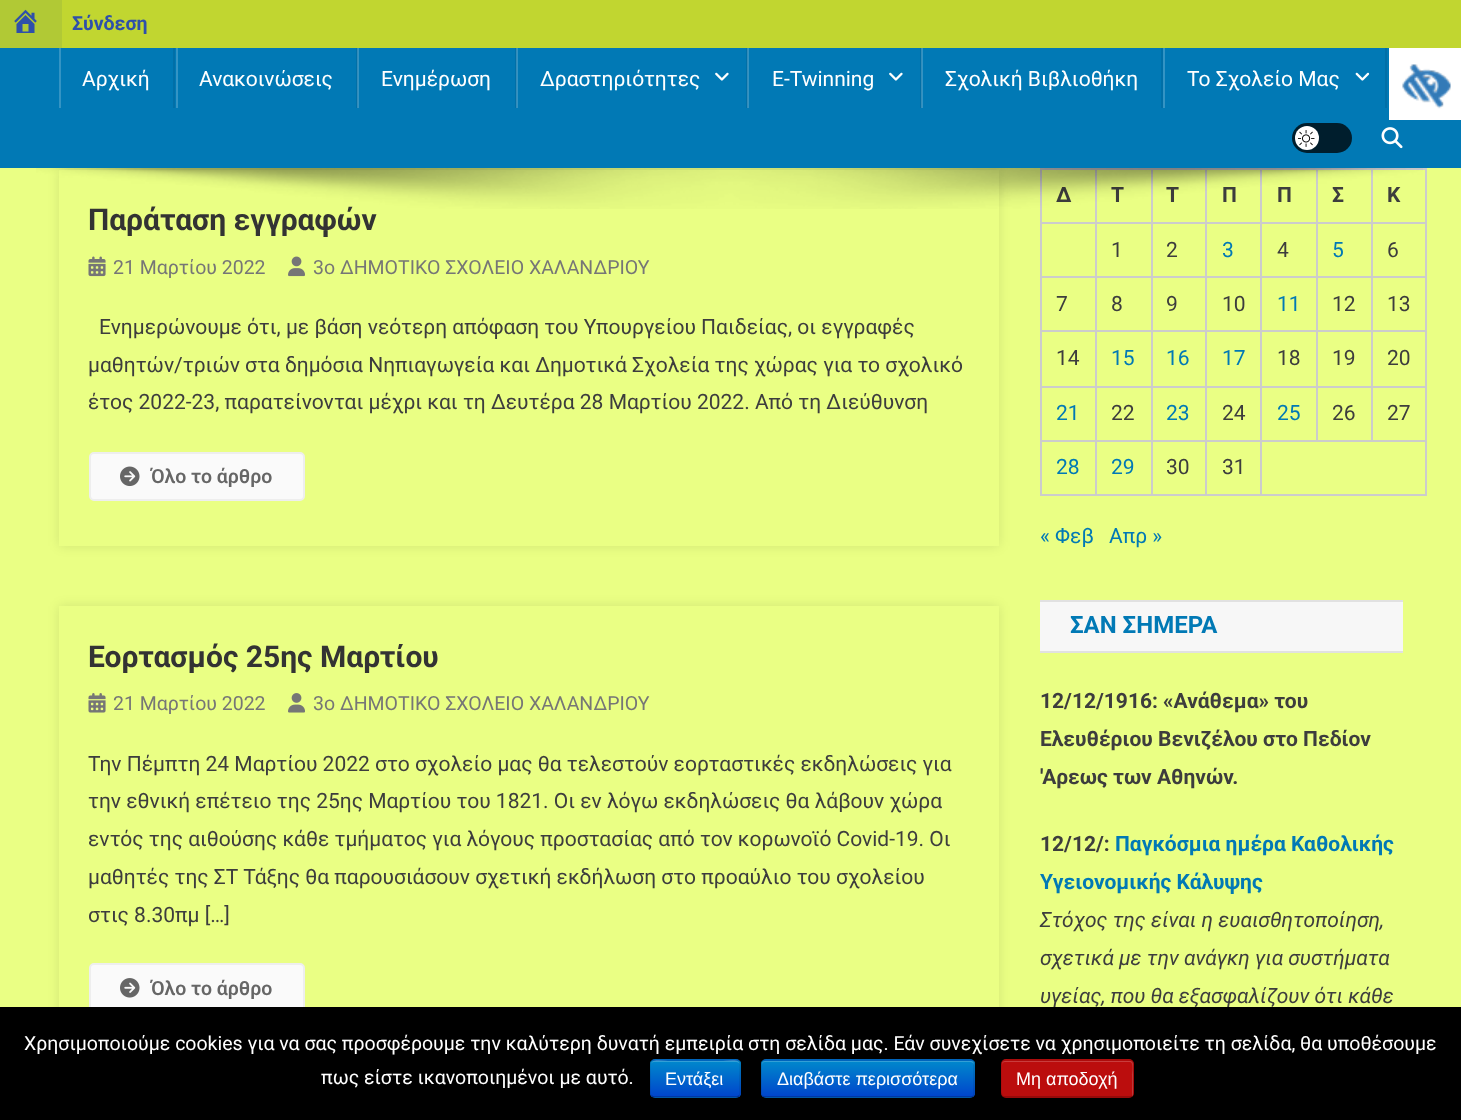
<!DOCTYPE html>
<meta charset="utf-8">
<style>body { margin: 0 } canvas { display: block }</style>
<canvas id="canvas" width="1461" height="1120"></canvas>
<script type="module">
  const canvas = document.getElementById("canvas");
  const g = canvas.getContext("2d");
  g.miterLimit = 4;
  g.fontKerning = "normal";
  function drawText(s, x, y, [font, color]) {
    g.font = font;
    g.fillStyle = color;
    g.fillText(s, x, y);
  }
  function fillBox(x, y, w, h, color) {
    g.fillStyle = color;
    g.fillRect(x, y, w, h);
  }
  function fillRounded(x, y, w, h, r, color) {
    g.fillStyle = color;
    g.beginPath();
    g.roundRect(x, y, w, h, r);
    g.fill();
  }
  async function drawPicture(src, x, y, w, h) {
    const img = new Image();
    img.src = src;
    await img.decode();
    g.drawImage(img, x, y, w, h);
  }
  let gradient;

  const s1 = ["bold 19.5px Roboto", "#2E50AA"];
  const s2 = ["21px Roboto", "#FFFFFF"];
  const s3 = ["bold 30px Roboto", "#333333"];
  const s4 = ["bold 21px Roboto", "#3D3D3D"];
  const s5 = ["19.5px Roboto", "#767676"];
  const s6 = ["21px Roboto", "#3D3D3D"];
  const s7 = ["600 19.5px Roboto", "#666666"];
  const s8 = ["21px Roboto", "#0179B5"];
  const s9 = ["bold 24px Roboto", "#0179B5"];
  const s10 = ["bold 21px Roboto", "#0179B5"];
  const s11 = ["italic 21px Roboto", "#3D3D3D"];
  const s12 = ["19.5px Roboto", "#FFFFFF"];
  const s13 = ["18px Liberation Sans", "#FFFFFF"];

  fillBox(0, 0, 1461, 1120, "#EAFF84");
  fillBox(62, 0, 1399, 48, "#C1D630");
  fillBox(0, 0, 62, 48, "#B1C935");
  await drawPicture("pic1.png", 14, 9, 23, 24);
  drawText("Σύνδεση", 72, 30, s1);
  g.save();
  g.beginPath();
  g.moveTo(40, 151);
  g.lineTo(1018, 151);
  g.lineTo(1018, 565);
  g.lineTo(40, 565);
  g.closePath();
  g.moveTo(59, 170);
  g.lineTo(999, 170);
  g.lineTo(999, 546);
  g.lineTo(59, 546);
  g.closePath();
  g.clip("evenodd");
  g.fillStyle = "rgba(0, 0, 0, 0.1)";
  g.filter = "blur(6px)";
  g.beginPath();
  g.rect(59, 170, 940, 376);
  g.fill();
  g.filter = "none";
  g.restore();
  fillBox(0, 48, 1461, 120, "#0179B5");
  fillBox(922, 48, 1, 60, "#3494C4");
  fillBox(748, 48, 1, 60, "#3494C4");
  fillBox(517, 48, 1, 60, "#3494C4");
  fillBox(358, 48, 1, 60, "#3494C4");
  fillBox(173, 48, 2, 60, "#016FA7");
  fillBox(59, 48, 2, 60, "#3494C4");
  drawText("Αρχική", 82, 86, s2);
  fillBox(356, 48, 1, 60, "#016FA7");
  fillBox(357, 48, 1, 60, "#348CB9");
  fillBox(176, 48, 2, 60, "#3494C4");
  drawText("Ανακοινώσεις", 199, 86, s2);
  fillBox(515, 48, 1, 60, "#016FA7");
  fillBox(516, 48, 1, 60, "#348CB9");
  drawText("Ενημέρωση", 381, 86, s2);
  fillBox(746, 48, 1, 60, "#016FA7");
  fillBox(747, 48, 1, 60, "#348CB9");
  drawText("Δραστηριότητες", 540, 86, s2);
  await drawPicture("pic2.png", 715, 72, 14, 9);
  fillBox(920, 48, 1, 60, "#016FA7");
  fillBox(921, 48, 1, 60, "#348CB9");
  drawText("E-Twinning", 772, 86, s2);
  await drawPicture("pic2.png", 889, 72, 14, 9);
  fillBox(1161, 48, 2, 60, "#016FA7");
  drawText("Σχολική Βιβλιοθήκη", 945, 86, s2);
  fillBox(1385, 48, 2, 60, "#016FA7");
  fillBox(1163, 48, 2, 60, "#3494C4");
  drawText("Το Σχολείο Μας", 1187, 86, s2);
  await drawPicture("pic3.png", 1355, 72, 15, 9);
  fillRounded(1292, 123, 60, 30, 15, "#001E2D");
  g.fillStyle = "#FFFFFF";
  g.beginPath();
  g.arc(1307, 138, 12, 0, Math.PI * 2);
  g.fill();
  await drawPicture("pic4.png", 1298, 130, 17, 17);
  await drawPicture("pic5.png", 1381, 127, 22, 22);
  drawText("Παράταση εγγραφών", 88, 230, s3);
  fillBox(1371, 168, 56, 2, "#CCCCCC");
  fillBox(1371, 222, 56, 2, "#CCCCCC");
  fillBox(1371, 276, 56, 2, "#CCCCCC");
  fillBox(1371, 330, 56, 2, "#CCCCCC");
  fillBox(1371, 386, 56, 2, "#CCCCCC");
  fillBox(1260, 440, 167, 2, "#CCCCCC");
  fillBox(1371, 386, 2, 55, "#CCCCCC");
  fillBox(1316, 386, 57, 2, "#CCCCCC");
  fillBox(1371, 330, 2, 57, "#CCCCCC");
  fillBox(1316, 330, 57, 2, "#CCCCCC");
  fillBox(1371, 276, 2, 56, "#CCCCCC");
  fillBox(1316, 276, 57, 2, "#CCCCCC");
  fillBox(1371, 222, 2, 56, "#CCCCCC");
  fillBox(1316, 222, 57, 2, "#CCCCCC");
  fillBox(1371, 168, 2, 56, "#CCCCCC");
  fillBox(1316, 168, 57, 2, "#CCCCCC");
  fillBox(1316, 386, 2, 55, "#CCCCCC");
  fillBox(1260, 386, 57, 2, "#CCCCCC");
  fillBox(1316, 330, 2, 57, "#CCCCCC");
  fillBox(1260, 330, 57, 2, "#CCCCCC");
  fillBox(1316, 276, 2, 56, "#CCCCCC");
  fillBox(1260, 276, 57, 2, "#CCCCCC");
  fillBox(1316, 222, 2, 56, "#CCCCCC");
  fillBox(1260, 222, 57, 2, "#CCCCCC");
  fillBox(1316, 168, 2, 56, "#CCCCCC");
  fillBox(1260, 168, 57, 2, "#CCCCCC");
  fillBox(1425, 440, 2, 55, "#CCCCCC");
  fillBox(1260, 494, 167, 2, "#CCCCCC");
  fillBox(1260, 440, 2, 55, "#CCCCCC");
  fillBox(1205, 440, 57, 2, "#CCCCCC");
  fillBox(1260, 386, 2, 55, "#CCCCCC");
  fillBox(1205, 386, 57, 2, "#CCCCCC");
  fillBox(1260, 330, 2, 57, "#CCCCCC");
  fillBox(1205, 330, 57, 2, "#CCCCCC");
  fillBox(1260, 276, 2, 56, "#CCCCCC");
  fillBox(1205, 276, 57, 2, "#CCCCCC");
  fillBox(1260, 222, 2, 56, "#CCCCCC");
  fillBox(1205, 222, 57, 2, "#CCCCCC");
  fillBox(1260, 168, 2, 56, "#CCCCCC");
  fillBox(1205, 168, 57, 2, "#CCCCCC");
  fillBox(1205, 494, 57, 2, "#CCCCCC");
  fillBox(1205, 440, 2, 55, "#CCCCCC");
  fillBox(1151, 440, 55, 2, "#CCCCCC");
  fillBox(1205, 386, 2, 55, "#CCCCCC");
  fillBox(1151, 386, 55, 2, "#CCCCCC");
  fillBox(1205, 330, 2, 57, "#CCCCCC");
  fillBox(1151, 330, 55, 2, "#CCCCCC");
  fillBox(1205, 276, 2, 56, "#CCCCCC");
  fillBox(1151, 276, 55, 2, "#CCCCCC");
  fillBox(1205, 222, 2, 56, "#CCCCCC");
  fillBox(1151, 222, 55, 2, "#CCCCCC");
  fillBox(1205, 168, 2, 56, "#CCCCCC");
  fillBox(1151, 168, 55, 2, "#CCCCCC");
  fillBox(1151, 494, 55, 2, "#CCCCCC");
  fillBox(1151, 440, 2, 55, "#CCCCCC");
  fillBox(1095, 440, 57, 2, "#CCCCCC");
  fillBox(1151, 386, 2, 55, "#CCCCCC");
  fillBox(1095, 386, 57, 2, "#CCCCCC");
  fillBox(1151, 330, 2, 57, "#CCCCCC");
  fillBox(1095, 330, 57, 2, "#CCCCCC");
  fillBox(1151, 276, 2, 56, "#CCCCCC");
  fillBox(1095, 276, 57, 2, "#CCCCCC");
  fillBox(1151, 222, 2, 56, "#CCCCCC");
  fillBox(1095, 222, 57, 2, "#CCCCCC");
  fillBox(1151, 168, 2, 56, "#CCCCCC");
  fillBox(1095, 168, 57, 2, "#CCCCCC");
  fillBox(1095, 494, 57, 2, "#CCCCCC");
  fillBox(1095, 440, 2, 55, "#CCCCCC");
  fillBox(1040, 440, 57, 2, "#CCCCCC");
  fillBox(1095, 386, 2, 55, "#CCCCCC");
  fillBox(1040, 386, 57, 2, "#CCCCCC");
  fillBox(1095, 330, 2, 57, "#CCCCCC");
  fillBox(1040, 330, 57, 2, "#CCCCCC");
  fillBox(1095, 276, 2, 56, "#CCCCCC");
  fillBox(1040, 276, 57, 2, "#CCCCCC");
  fillBox(1095, 222, 2, 56, "#CCCCCC");
  fillBox(1040, 222, 57, 2, "#CCCCCC");
  fillBox(1095, 168, 2, 56, "#CCCCCC");
  fillBox(1040, 168, 57, 2, "#CCCCCC");
  fillBox(1040, 494, 57, 2, "#CCCCCC");
  fillBox(1040, 440, 2, 55, "#CCCCCC");
  fillBox(1040, 386, 2, 55, "#CCCCCC");
  fillBox(1040, 330, 2, 57, "#CCCCCC");
  fillBox(1040, 276, 2, 56, "#CCCCCC");
  fillBox(1040, 222, 2, 56, "#CCCCCC");
  fillBox(1040, 168, 2, 56, "#CCCCCC");
  drawText("Δ", 1056, 202, s4);
  drawText("Τ", 1111, 202, s4);
  drawText("Τ", 1166, 202, s4);
  drawText("Π", 1222, 202, s4);
  drawText("Π", 1277, 202, s4);
  drawText("Σ", 1332, 202, s4);
  drawText("Κ", 1387, 202, s4);
  await drawPicture("pic6.png", 36, 168, 1387, 41);
  await drawPicture("pic7.png", 88, 256, 18, 21);
  drawText("21 Μαρτίου 2022", 113, 274, s5);
  await drawPicture("pic8.png", 288, 256, 17, 21);
  drawText("3ο ΔΗΜΟΤΙΚΟ ΣΧΟΛΕΙΟ ΧΑΛΑΝΔΡΙΟΥ", 313, 274, s5);
  drawText("Ενημερώνουμε ότι, με βάση νεότερη απόφαση του Υπουργείου Παιδείας, οι εγγραφές", 99, 334, s6);
  drawText("μαθητών/τριών στα δημόσια Νηπιαγωγεία και Δημοτικά Σχολεία της χώρας για το σχολικό", 88, 372, s6);
  drawText("έτος 2022-23, παρατείνονται μέχρι και τη Δευτέρα 28 Μαρτίου 2022. Από τη Διεύθυνση", 88, 409, s6);
  g.fillStyle = "#FAFAFA";
  g.beginPath();
  g.roundRect(90, 453, 214, 47, 4);
  g.fill();
  g.strokeStyle = "#EEEEEE";
  g.lineWidth = 2;
  g.stroke();
  await drawPicture("pic9.png", 120, 466, 20, 21);
  drawText("Όλο το άρθρο", 151, 483, s7);
  g.save();
  g.beginPath();
  g.moveTo(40, 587);
  g.lineTo(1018, 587);
  g.lineTo(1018, 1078);
  g.lineTo(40, 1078);
  g.closePath();
  g.moveTo(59, 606);
  g.lineTo(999, 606);
  g.lineTo(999, 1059);
  g.lineTo(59, 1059);
  g.closePath();
  g.clip("evenodd");
  g.fillStyle = "rgba(0, 0, 0, 0.1)";
  g.filter = "blur(6px)";
  g.beginPath();
  g.rect(59, 606, 940, 453);
  g.fill();
  g.filter = "none";
  g.restore();
  drawText("Εορτασμός 25ης Μαρτίου", 88, 667, s3);
  await drawPicture("pic10.png", 88, 693, 18, 20);
  drawText("21 Μαρτίου 2022", 113, 710, s5);
  await drawPicture("pic11.png", 288, 693, 17, 20);
  drawText("3ο ΔΗΜΟΤΙΚΟ ΣΧΟΛΕΙΟ ΧΑΛΑΝΔΡΙΟΥ", 313, 710, s5);
  drawText("Την Πέμπτη 24 Μαρτίου 2022 στο σχολείο μας θα τελεστούν εορταστικές εκδηλώσεις για", 88, 771, s6);
  drawText("την εθνική επέτειο της 25ης Μαρτίου του 1821. Οι εν λόγω εκδηλώσεις θα λάβουν χώρα", 88, 808, s6);
  drawText("εντός της αιθούσης κάθε τμήματος για λόγους προστασίας από τον κορωνοϊό Covid-19. Οι", 88, 846, s6);
  drawText("μαθητές της ΣΤ Τάξης θα παρουσιάσουν σχετική εκδήλωση στο προαύλιο του σχολείου", 88, 884, s6);
  drawText("στις 8.30πμ […]", 88, 922, s6);
  g.fillStyle = "#FAFAFA";
  g.beginPath();
  g.roundRect(90, 964, 214, 49, 4);
  g.fill();
  g.stroke();
  await drawPicture("pic12.png", 120, 978, 20, 20);
  drawText("Όλο το άρθρο", 151, 995, s7);
  fillBox(1425, 386, 2, 55, "#CCCCCC");
  fillBox(1425, 330, 2, 57, "#CCCCCC");
  fillBox(1425, 276, 2, 56, "#CCCCCC");
  fillBox(1425, 222, 2, 56, "#CCCCCC");
  fillBox(1425, 168, 2, 56, "#CCCCCC");
  drawText("1", 1111, 257, s6);
  drawText("2", 1166, 257, s6);
  drawText("3", 1222, 257, s8);
  drawText("4", 1277, 257, s6);
  drawText("5", 1332, 257, s8);
  drawText("6", 1387, 257, s6);
  drawText("7", 1056, 311, s6);
  drawText("8", 1111, 311, s6);
  drawText("9", 1166, 311, s6);
  drawText("10", 1222, 311, s6);
  drawText("11", 1277, 311, s8);
  drawText("12", 1332, 311, s6);
  drawText("13", 1387, 311, s6);
  drawText("14", 1056, 365, s6);
  drawText("15", 1111, 365, s8);
  drawText("16", 1166, 365, s8);
  drawText("17", 1222, 365, s8);
  drawText("18", 1277, 365, s6);
  drawText("19", 1332, 365, s6);
  drawText("20", 1387, 365, s6);
  drawText("21", 1056, 420, s8);
  drawText("22", 1111, 420, s6);
  drawText("23", 1166, 420, s8);
  drawText("24", 1222, 420, s6);
  drawText("25", 1277, 420, s8);
  drawText("26", 1332, 420, s6);
  drawText("27", 1387, 420, s6);
  drawText("28", 1056, 474, s8);
  drawText("29", 1111, 474, s8);
  drawText("30", 1166, 474, s6);
  drawText("31", 1222, 474, s6);
  drawText("« Φεβ", 1040, 543, s8);
  drawText("Απρ »", 1109, 543, s8);
  fillBox(1040, 602, 363, 49, "#F7F7F7");
  fillBox(1040, 600, 363, 2, "#E1E1E1");
  fillBox(1040, 651, 363, 2, "#E1E1E1");
  drawText("ΣΑΝ ΣΗΜΕΡΑ", 1070, 633, s9);
  drawText("12/12/1916: «Ανάθεμα» του", 1040, 708, s4);
  drawText("Ελευθέριου Βενιζέλου στο Πεδίον", 1040, 746, s4);
  drawText("'Αρεως των Αθηνών.", 1040, 784, s4);
  drawText("12/12/:", 1040, 851, s4);
  drawText("Παγκόσμια ημέρα Καθολικής", 1115, 851, s10);
  drawText("Υγειονομικής Κάλυψης", 1040, 889, s10);
  drawText("Στόχος της είναι η ευαισθητοποίηση,", 1040, 927, s11);
  drawText("σχετικά με την ανάγκη για συστήματα", 1040, 965, s11);
  drawText("υγείας, που θα εξασφαλίζουν ότι κάθε", 1040, 1003, s11);
  fillBox(1389, 48, 72, 72, "#FFFFFF");
  await drawPicture("pic13.png", 1402, 64, 49, 45);
  fillBox(0, 1007, 1461, 113, "#000000");
  drawText("Χρησιμοποιούμε cookies για να σας προσφέρουμε την καλύτερη δυνατή εμπειρία στη σελίδα μας. Εάν συνεχίσετε να χρησιμοποιείτε τη σελίδα, θα υποθέσουμε", 24, 1050, s12);
  drawText("πως είστε ικανοποιημένοι με αυτό.", 321, 1084, s12);
  fillRounded(650, 1059, 91, 39, 5, "#006DCC");
  g.save();
  g.beginPath();
  g.roundRect(650, 1059, 91, 39, 5);
  g.clip();
  gradient = g.createLinearGradient(695, 1061, 695, 1097);
  gradient.addColorStop(0, "#0088CC");
  gradient.addColorStop(1, "#0044CC");
  g.fillStyle = gradient;
  g.fillRect(650, 1061, 91, 36);
  g.restore();
  g.fillStyle = "rgba(255, 255, 255, 0.2)";
  g.beginPath();
  g.moveTo(654, 1062);
  g.lineTo(736, 1062);
  g.bezierCurveTo(738, 1062, 740, 1063, 740, 1065);
  g.bezierCurveTo(740, 1057, 727, 1061, 723, 1061);
  g.lineTo(668, 1061);
  g.bezierCurveTo(664, 1061, 651, 1057, 651, 1065);
  g.bezierCurveTo(651, 1063, 652, 1062, 654, 1062);
  g.closePath();
  g.fill();
  g.beginPath();
  g.moveTo(739, 1096);
  g.lineTo(737, 1097);
  g.lineTo(653.5, 1097);
  g.lineTo(651.5, 1096);
  g.strokeStyle = "rgba(0, 0, 0, 0.25)";
  g.lineWidth = 1.5;
  g.stroke();
  g.beginPath();
  g.moveTo(651.5, 1096);
  g.bezierCurveTo(649.5, 1094.5, 650, 1090.5, 650, 1088.5);
  g.lineTo(650, 1078.5);
  g.bezierCurveTo(650, 1057, 646.5, 1060, 668, 1060);
  g.lineTo(723, 1060);
  g.bezierCurveTo(744, 1060, 740, 1057, 740, 1078.5);
  g.lineTo(740, 1088.5);
  g.bezierCurveTo(740, 1090.5, 741, 1094.5, 739, 1096);
  g.strokeStyle = "rgba(0, 0, 0, 0.1)";
  g.stroke();
  drawText("Εντάξει", 665, 1085, s13);
  fillRounded(761, 1059, 214, 39, 5, "#006DCC");
  g.save();
  g.beginPath();
  g.roundRect(761, 1059, 214, 39, 5);
  g.clip();
  gradient = g.createLinearGradient(868, 1061, 868, 1097);
  gradient.addColorStop(0, "#0088CC");
  gradient.addColorStop(1, "#0044CC");
  g.fillStyle = gradient;
  g.fillRect(761, 1061, 214, 36);
  g.restore();
  g.fillStyle = "#339FD6";
  g.beginPath();
  g.moveTo(765, 1062);
  g.lineTo(970, 1062);
  g.bezierCurveTo(972, 1062, 974, 1063, 974, 1065);
  g.lineTo(974, 1064);
  g.bezierCurveTo(974, 1062, 973, 1061, 971, 1061);
  g.lineTo(765, 1061);
  g.bezierCurveTo(763, 1061, 762, 1062, 762, 1064);
  g.lineTo(762, 1065);
  g.bezierCurveTo(762, 1063, 763, 1062, 765, 1062);
  g.closePath();
  g.fill();
  g.beginPath();
  g.moveTo(973, 1096);
  g.bezierCurveTo(972.5, 1097, 971.5, 1097, 970.5, 1097);
  g.lineTo(765, 1097);
  g.bezierCurveTo(764, 1097, 763, 1097, 762.5, 1096);
  g.strokeStyle = "rgba(0, 0, 0, 0.25)";
  g.stroke();
  g.beginPath();
  g.moveTo(762.5, 1096);
  g.bezierCurveTo(761.5, 1095.5, 761, 1094.5, 761, 1093.5);
  g.lineTo(761, 1063.5);
  g.bezierCurveTo(761, 1062.5, 761.5, 1061.5, 762.5, 1061);
  g.bezierCurveTo(763, 1060, 764, 1060, 765, 1060);
  g.lineTo(970.5, 1060);
  g.bezierCurveTo(971.5, 1060, 972.5, 1060, 973, 1061);
  g.bezierCurveTo(974, 1061.5, 974, 1062.5, 974, 1063.5);
  g.lineTo(974, 1093.5);
  g.bezierCurveTo(974, 1094.5, 974, 1095.5, 973, 1096);
  g.strokeStyle = "rgba(0, 0, 0, 0.1)";
  g.stroke();
  drawText("Διαβάστε περισσότερα", 777, 1085, s13);
  fillRounded(1001, 1059, 133, 39, 5, "#BB0D0D");
  g.fillStyle = "#C93D3D";
  g.beginPath();
  g.moveTo(1005, 1062);
  g.lineTo(1130, 1062);
  g.bezierCurveTo(1134, 1062, 1132, 1074, 1132, 1075);
  g.lineTo(1132, 1096);
  g.bezierCurveTo(1133, 1096, 1133, 1095, 1133, 1094);
  g.lineTo(1133, 1064);
  g.bezierCurveTo(1133, 1062, 1132, 1061, 1130, 1061);
  g.lineTo(1005, 1061);
  g.bezierCurveTo(1003, 1061, 1002, 1062, 1002, 1064);
  g.lineTo(1002, 1065);
  g.bezierCurveTo(1002, 1063, 1003, 1062, 1005, 1062);
  g.closePath();
  g.fill();
  g.beginPath();
  g.moveTo(1132, 1096);
  g.bezierCurveTo(1131.5, 1097, 1130.5, 1097, 1129.5, 1097);
  g.lineTo(1005, 1097);
  g.bezierCurveTo(1004, 1097, 1003, 1097, 1002.5, 1096);
  g.strokeStyle = "rgba(0, 0, 0, 0.25)";
  g.stroke();
  g.beginPath();
  g.moveTo(1002.5, 1096);
  g.bezierCurveTo(1000, 1093.5, 1001, 1086, 1001, 1083.5);
  g.bezierCurveTo(1001, 1055, 996, 1060, 1026, 1060);
  g.lineTo(1109, 1060);
  g.bezierCurveTo(1138.5, 1060, 1133, 1055, 1133, 1083.5);
  g.bezierCurveTo(1133, 1086, 1134.5, 1093.5, 1132, 1096);
  g.strokeStyle = "rgba(0, 0, 0, 0.1)";
  g.stroke();
  drawText("Μη αποδοχή", 1016, 1085, s13);
</script>
